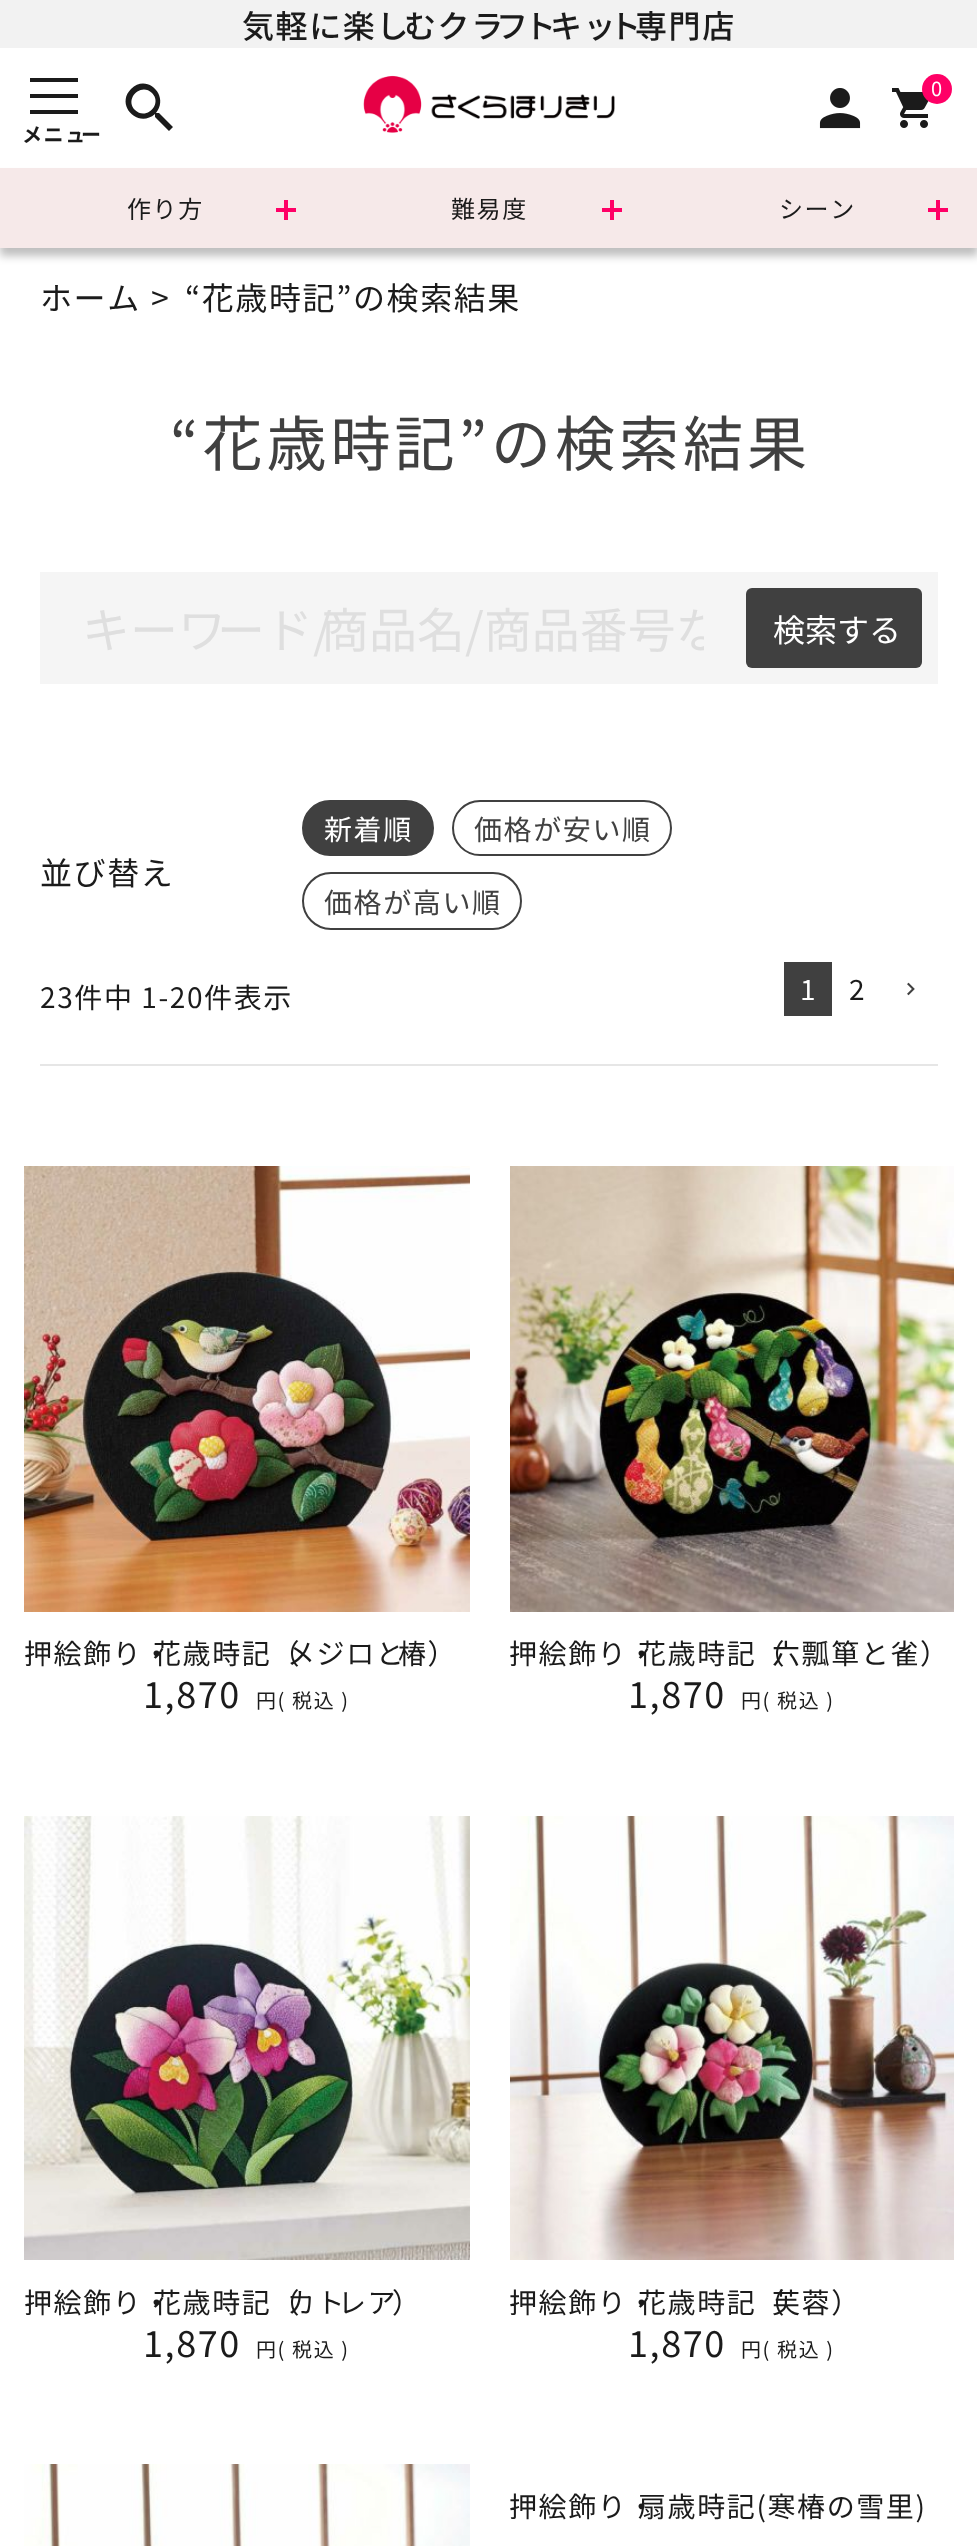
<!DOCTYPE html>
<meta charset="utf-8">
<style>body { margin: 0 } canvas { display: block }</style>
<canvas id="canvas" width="977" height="2546"></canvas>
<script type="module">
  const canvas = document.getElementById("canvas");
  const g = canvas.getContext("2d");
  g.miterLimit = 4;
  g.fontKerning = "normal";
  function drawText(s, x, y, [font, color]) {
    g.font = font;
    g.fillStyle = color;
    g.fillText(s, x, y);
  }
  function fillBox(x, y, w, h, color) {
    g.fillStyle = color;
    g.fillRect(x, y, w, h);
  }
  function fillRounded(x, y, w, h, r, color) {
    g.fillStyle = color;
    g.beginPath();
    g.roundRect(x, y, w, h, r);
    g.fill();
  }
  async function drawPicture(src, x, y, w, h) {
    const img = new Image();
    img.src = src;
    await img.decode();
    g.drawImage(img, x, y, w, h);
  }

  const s1 = ["500 32px Noto Sans JP", "#1B1B1B"];
  const s2 = ["20px Noto Sans JP", "#FFFFFF"];
  const s3 = ["bold 20px Noto Sans JP", "#1B1B1B"];
  const s4 = ["24px Noto Sans JP", "#1B1B1B"];
  const s5 = ["32px Noto Sans JP", "#1B1B1B"];
  const s6 = ["60px Noto Sans JP", "#404040"];
  const s7 = ["48px Noto Sans JP", "#DFDFDF"];
  const s8 = ["32px Noto Sans JP", "#FFFFFF"];
  const s9 = ["28px Noto Sans JP", "#FFFFFF"];
  const s10 = ["28px Noto Sans JP", "#404040"];
  const s11 = ["28px Noto Sans JP", "#1B1B1B"];
  const s12 = ["36px Noto Sans JP", "#1B1B1B"];
  const s13 = ["20px Noto Sans JP", "#1B1B1B"];

  fillBox(0, 0, 977, 2546, "#FFFFFF");
  fillBox(0, 0, 977, 48, "#F2F2F2");
  g.letterSpacing = "1.6px";
  drawText("気軽に楽し", 242, 38, s1);
  drawText("むクラ", 404, 38, s1);
  drawText("フ", 496, 38, s1);
  drawText("ト", 524, 38, s1);
  drawText("キッ", 550, 38, s1);
  drawText("ト", 609, 38, s1);
  drawText("専門店", 635, 38, s1);
  await drawPicture("pic1.png", 363, 75, 252, 58);
  await drawPicture("pic2.png", 819, 88, 42, 41);
  await drawPicture("pic3.png", 892, 88, 37, 40);
  g.fillStyle = "#FF0066";
  g.beginPath();
  g.arc(937, 89, 15, 0, Math.PI * 2);
  g.fill();
  drawText("0", 931, 96, s2);
  g.fillStyle = "#1B1B1B";
  g.beginPath();
  g.moveTo(135, 110);
  g.bezierCurveTo(146, 121, 163, 104, 152, 93);
  g.bezierCurveTo(141, 82, 124, 99, 135, 110);
  g.closePath();
  g.moveTo(159, 113);
  g.lineTo(173, 127);
  g.lineTo(169, 131);
  g.lineTo(155, 117);
  g.lineTo(155, 115);
  g.lineTo(155, 114);
  g.bezierCurveTo(138, 129, 115, 105, 131, 89);
  g.bezierCurveTo(147, 73, 170, 96, 156, 113);
  g.lineTo(157, 113);
  g.closePath();
  g.fill();
  fillBox(30, 78, 48, 4, "#1B1B1B");
  fillBox(30, 94, 48, 4, "#1B1B1B");
  fillBox(30, 110, 48, 4, "#1B1B1B");
  drawText("メニュ", 22, 142, s3);
  drawText("ー", 81, 142, s3);
  g.fillStyle = "rgba(0, 0, 0, 0.25)";
  g.filter = "blur(4px)";
  g.beginPath();
  g.rect(0, 176, 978, 80);
  g.fill();
  g.filter = "none";
  fillBox(0, 168, 977, 80, "#F6E9E9");
  drawText("作り方", 127, 218, s4);
  fillBox(284, 200, 4, 20, "#FF0066");
  fillBox(276, 208, 20, 4, "#FF0066");
  drawText("難易度", 451, 218, s4);
  fillBox(610, 200, 4, 20, "#FF0066");
  fillBox(602, 208, 20, 4, "#FF0066");
  drawText("シーン", 779, 218, s4);
  fillBox(936, 200, 4, 20, "#FF0066");
  fillBox(928, 208, 20, 4, "#FF0066");
  drawText("ホーム", 40, 310, s5);
  drawText(">", 151, 310, s5);
  drawText("“花歳時記”の検索結果", 185, 310, s5);
  g.letterSpacing = "4px";
  drawText("“花歳時記”の検索結果", 170, 466, s6);
  fillBox(40, 572, 898, 112, "#F5F5F5");
  g.save();
  g.beginPath();
  g.rect(82, 592, 622, 70);
  g.clip();
  g.letterSpacing = "0px";
  drawText("キーワ", 82, 648, s7);
  drawText("ード/", 217, 648, s7);
  drawText("商品名/商品番号な", 321, 648, s7);
  g.restore();
  fillRounded(746, 588, 176, 80, 6, "#404040");
  g.letterSpacing = "0px";
  drawText("検索する", 773, 642, s8);
  fillBox(40, 1064, 898, 2, "#E6E6E6");
  g.letterSpacing = "1.6px";
  drawText("並び替え", 40, 885, s5);
  g.fillStyle = "#404040";
  g.beginPath();
  g.roundRect(303, 801, 130, 54, 27);
  g.fill();
  g.strokeStyle = "#404040";
  g.lineWidth = 2;
  g.stroke();
  drawText("新着順", 324, 840, s9);
  g.beginPath();
  g.roundRect(453, 801, 218, 54, 27);
  g.stroke();
  drawText("価格が安い順", 474, 840, s10);
  g.beginPath();
  g.roundRect(303, 873, 218, 56, 28);
  g.stroke();
  drawText("価格が高い順", 324, 913, s10);
  drawText("23件中 1-20件表示", 40, 1008, s11);
  fillBox(784, 962, 48, 54, "#404040");
  drawText("1", 800, 1000, s9);
  drawText("2", 849, 1000, s11);
  await drawPicture("pic4.png", 907, 982, 8, 14);
  await drawPicture("pic5.png", 24, 1166, 446, 446);
  drawText("押絵飾り・", 24, 1664, s11);
  drawText("花歳時記（", 153, 1664, s11);
  drawText("メジロと", 287, 1664, s11);
  drawText("椿）", 398, 1664, s11);
  drawText("1,870", 143, 1708, s12);
  drawText("円( 税込 )", 256, 1708, s13);
  await drawPicture("pic6.png", 510, 1166, 444, 446);
  drawText("押絵飾り・", 509, 1664, s11);
  drawText("花歳時記（", 638, 1664, s11);
  drawText("六瓢箪と雀）", 772, 1664, s11);
  drawText("1,870", 628, 1708, s12);
  drawText("円( 税込 )", 741, 1708, s13);
  await drawPicture("pic7.png", 24, 1816, 446, 444);
  drawText("押絵飾り・", 24, 2313, s11);
  drawText("花歳時記（", 153, 2313, s11);
  drawText("カト", 287, 2313, s11);
  drawText("レア", 338, 2313, s11);
  drawText("）", 392, 2313, s11);
  drawText("1,870", 143, 2357, s12);
  drawText("円( 税込 )", 256, 2357, s13);
  await drawPicture("pic8.png", 510, 1816, 444, 444);
  drawText("押絵飾り・", 509, 2313, s11);
  drawText("花歳時記（", 638, 2313, s11);
  drawText("芙蓉）", 772, 2313, s11);
  drawText("1,870", 628, 2357, s12);
  drawText("円( 税込 )", 741, 2357, s13);
  await drawPicture("pic9.png", 24, 2464, 446, 82);
  drawText("押絵飾り・", 509, 2517, s11);
  drawText("扇歳時記(寒椿の雪里)", 638, 2517, s11);
</script>
